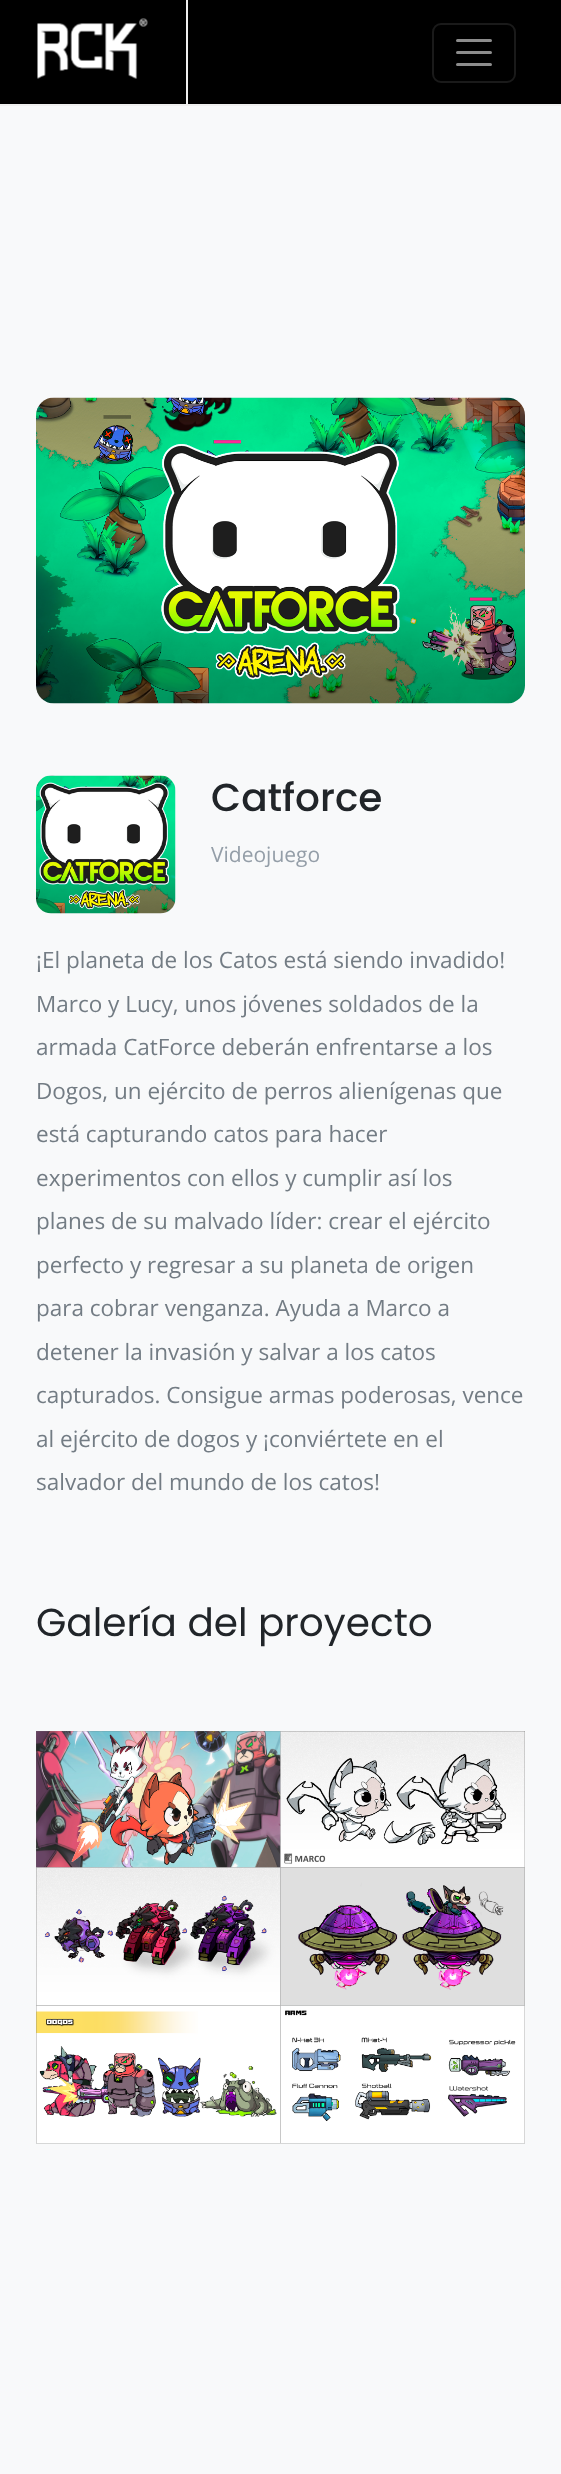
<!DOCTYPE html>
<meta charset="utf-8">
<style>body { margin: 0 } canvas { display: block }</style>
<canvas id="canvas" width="561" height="2474"></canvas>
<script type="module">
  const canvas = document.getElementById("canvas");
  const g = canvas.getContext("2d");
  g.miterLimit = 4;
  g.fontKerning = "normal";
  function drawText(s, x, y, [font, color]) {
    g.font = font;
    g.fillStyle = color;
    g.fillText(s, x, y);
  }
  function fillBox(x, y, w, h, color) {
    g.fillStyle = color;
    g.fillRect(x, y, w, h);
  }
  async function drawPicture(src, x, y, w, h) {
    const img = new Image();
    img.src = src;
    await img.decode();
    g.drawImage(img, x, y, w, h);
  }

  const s1 = ["500 39px Poppins", "#212529"];
  const s2 = ["21px Open Sans", "#949EA8"];
  const s3 = ["22.5px Open Sans", "#737C84"];
  const s4 = ["39px Poppins", "#212529"];

  fillBox(0, 0, 561, 2474, "#F8F9FA");
  fillBox(0, 0, 561, 104, "#000000");
  fillBox(0, 104, 561, 2, "#EFEFEF");
  fillBox(186, 0, 2, 105, "#EFEFEF");
  await drawPicture("pic1.png", 37, 18, 111, 61);
  g.beginPath();
  g.roundRect(433, 24, 82, 58, 8);
  g.strokeStyle = "#1A1A1A";
  g.lineWidth = 2;
  g.stroke();
  g.beginPath();
  g.moveTo(457.5, 40.5);
  g.lineTo(490.5, 40.5);
  g.moveTo(457.5, 52.5);
  g.lineTo(490.5, 52.5);
  g.moveTo(457.5, 64.5);
  g.lineTo(490.5, 64.5);
  g.strokeStyle = "#8C8C8C";
  g.lineWidth = 3;
  g.lineCap = "round";
  g.stroke();
  await drawPicture("pic2.png", 36, 397, 489, 307);
  await drawPicture("pic3.png", 36, 775, 140, 139);
  drawText("Catforce", 211, 811, s1);
  drawText("Videojuego", 211, 862, s2);
  drawText("¡El planeta de los Catos está siendo invadido!", 36, 968, s3);
  drawText("Marco y Lucy, unos jóvenes soldados de la", 36, 1012, s3);
  drawText("armada CatForce deberán enfrentarse a los", 36, 1055, s3);
  drawText("Dogos, un ejército de perros alienígenas que", 36, 1099, s3);
  drawText("está capturando catos para hacer", 36, 1142, s3);
  drawText("experimentos con ellos y cumplir así los", 36, 1186, s3);
  drawText("planes de su malvado líder: crear el ejército", 36, 1229, s3);
  drawText("perfecto y regresar a su planeta de origen", 36, 1273, s3);
  drawText("para cobrar venganza. Ayuda a Marco a", 36, 1316, s3);
  drawText("detener la invasión y salvar a los catos", 36, 1360, s3);
  drawText("capturados. Consigue armas poderosas, vence", 36, 1403, s3);
  drawText("al ejército de dogos y ¡conviértete en el", 36, 1447, s3);
  drawText("salvador del mundo de los catos!", 36, 1490, s3);
  drawText("Galería del proyecto", 36, 1636, s4);
  await drawPicture("pic4.png", 36, 1731, 245, 137);
  await drawPicture("pic5.png", 280, 1731, 245, 137);
  await drawPicture("pic6.png", 36, 1867, 245, 139);
  await drawPicture("pic7.png", 280, 1867, 245, 139);
  await drawPicture("pic8.png", 36, 2005, 245, 139);
  await drawPicture("pic9.png", 280, 2005, 245, 139);
</script>
